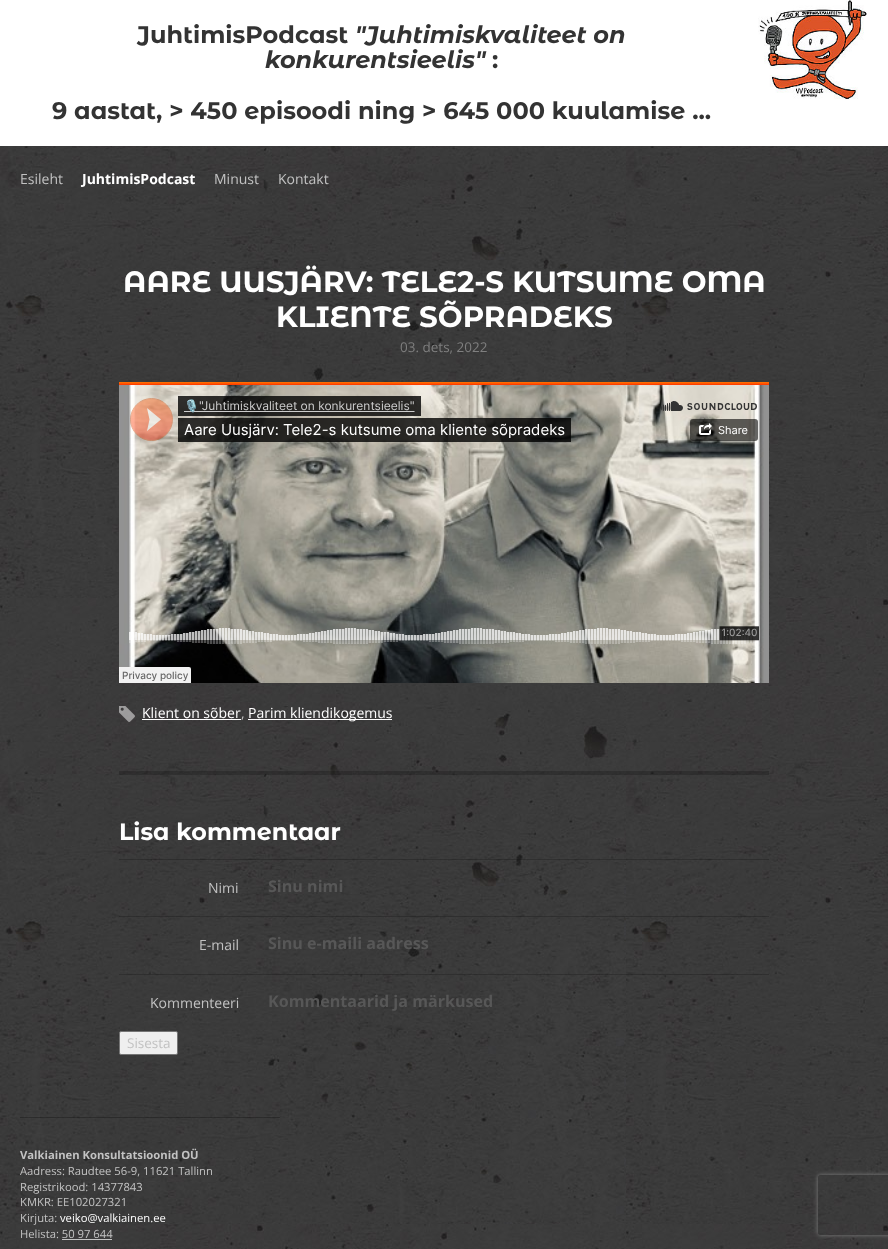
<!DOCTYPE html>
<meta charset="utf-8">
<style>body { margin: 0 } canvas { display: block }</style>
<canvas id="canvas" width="888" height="1249"></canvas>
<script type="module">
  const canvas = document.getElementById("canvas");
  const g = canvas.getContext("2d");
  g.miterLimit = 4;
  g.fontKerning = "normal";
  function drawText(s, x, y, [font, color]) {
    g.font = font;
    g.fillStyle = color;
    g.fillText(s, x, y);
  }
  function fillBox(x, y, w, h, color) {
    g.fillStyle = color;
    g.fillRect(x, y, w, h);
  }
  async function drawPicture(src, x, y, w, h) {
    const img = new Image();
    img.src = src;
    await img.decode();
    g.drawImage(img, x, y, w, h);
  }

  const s1 = ["bold 24px Montserrat Alternates", "#333333"];
  const s2 = ["italic bold 24px Montserrat Alternates", "#333333"];
  const s3 = ["14px Open Sans", "#C2C2C2"];
  const s4 = ["bold 14px Open Sans", "#FFFFFF"];
  const s5 = ["bold 29.4px Montserrat Alternates", "#FFFFFF"];
  const s6 = ["13.5px Open Sans", "#7F7F7F"];
  const s7 = ["14px Open Sans", "#FFFFFF"];
  const s8 = ["bold 23.75px Montserrat Alternates", "#FFFFFF"];
  const s9 = ["bold 16.1px Open Sans", "#575757"];
  const s10 = ["13.5px Open Sans", "#C2C2C2"];
  const s11 = ["bold 11.25px Open Sans", "#C2C2C2"];
  const s12 = ["11.25px Open Sans", "#C2C2C2"];
  const s13 = ["11.25px Open Sans", "#FFFFFF"];

  fillBox(0, 0, 888, 1249, "#FFFFFF");
  await drawPicture("pic1.png", 0, 146, 888, 1103);
  drawText("JuhtimisPodcast", 137, 43, s1);
  drawText("\"Juhtimiskvaliteet on", 355, 43, s2);
  drawText("konkurentsieelis\"", 265, 68, s2);
  drawText(":", 492, 68, s1);
  await drawPicture("pic2.png", 758, 0, 109, 99);
  drawText("9 aastat, > 450 episoodi ning > 645 000 kuulamise ...", 52, 119, s1);
  drawText("Esileht", 20, 184, s3);
  drawText("JuhtimisPodcast", 82, 184, s4);
  drawText("Minust", 214, 184, s3);
  drawText("Kontakt", 278, 184, s3);
  drawText("AARE UUSJÄRV: TELE2-S KUTSUME OMA", 123, 292, s5);
  drawText("KLIENTE SÕPRADEKS", 276, 327, s5);
  drawText("03. dets, 2022", 400, 352, s6);
  await drawPicture("pic3.png", 119, 382, 650, 301);
  await drawPicture("pic4.png", 119, 706, 16, 16);
  drawText("Klient on sõber", 142, 718, s7);
  fillBox(142, 719, 99, 1, "#FFFFFF");
  drawText(",", 241, 718, s3);
  fillBox(248, 719, 144, 1, "#FFFFFF");
  drawText("Parim kliendikogemus", 248, 718, s7);
  fillBox(119, 771, 650, 4, "rgba(0, 0, 0, 0.2)");
  drawText("Lisa kommentaar", 119, 840, s8);
  fillBox(119, 859, 650, 1, "rgba(0, 0, 0, 0.2)");
  drawText("Nimi", 208, 893, s3);
  drawText("Sinu nimi", 268, 892, s9);
  fillBox(119, 916, 650, 1, "rgba(0, 0, 0, 0.2)");
  drawText("E-mail", 199, 950, s3);
  drawText("Sinu e-maili aadress", 268, 949, s9);
  fillBox(119, 974, 650, 1, "rgba(0, 0, 0, 0.2)");
  drawText("Kommenteeri", 150, 1008, s3);
  drawText("Kommentaarid ja märkused", 268, 1007, s9);
  g.fillStyle = "#EFEFEF";
  g.beginPath();
  g.roundRect(119.5, 1031.5, 58, 23, 1.5);
  g.fill();
  g.strokeStyle = "#767676";
  g.stroke();
  drawText("Sisesta", 127, 1048, s10);
  g.save();
  g.beginPath();
  g.moveTo(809, 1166);
  g.lineTo(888, 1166);
  g.lineTo(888, 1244);
  g.lineTo(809, 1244);
  g.closePath();
  g.moveTo(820, 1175);
  g.lineTo(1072, 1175);
  g.bezierCurveTo(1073, 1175, 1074, 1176, 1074, 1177);
  g.lineTo(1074, 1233);
  g.bezierCurveTo(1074, 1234, 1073, 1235, 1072, 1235);
  g.lineTo(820, 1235);
  g.bezierCurveTo(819, 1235, 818, 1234, 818, 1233);
  g.lineTo(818, 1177);
  g.bezierCurveTo(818, 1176, 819, 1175, 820, 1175);
  g.closePath();
  g.clip("evenodd");
  g.fillStyle = "#808080";
  g.filter = "blur(2.5px)";
  g.beginPath();
  g.roundRect(818, 1175, 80, 60, 2);
  g.fill();
  g.filter = "none";
  g.restore();
  fillBox(20, 1117, 260, 1, "rgba(0, 0, 0, 0.25)");
  drawText("Valkiainen Konsultatsioonid OÜ", 20, 1159, s11);
  drawText("Aadress: Raudtee 56-9, 11621 Tallinn", 20, 1175, s12);
  drawText("Registrikood: 14377843", 20, 1191, s12);
  drawText("KMKR: EE102027321", 20, 1206, s12);
  drawText("Kirjuta:", 20, 1222, s12);
  drawText("veiko@valkiainen.ee", 60, 1222, s13);
  drawText("Helista: 50 97 644", 20, 1238, s12);
  fillBox(62, 1239, 50, 1, "#C2C2C2");
</script>
